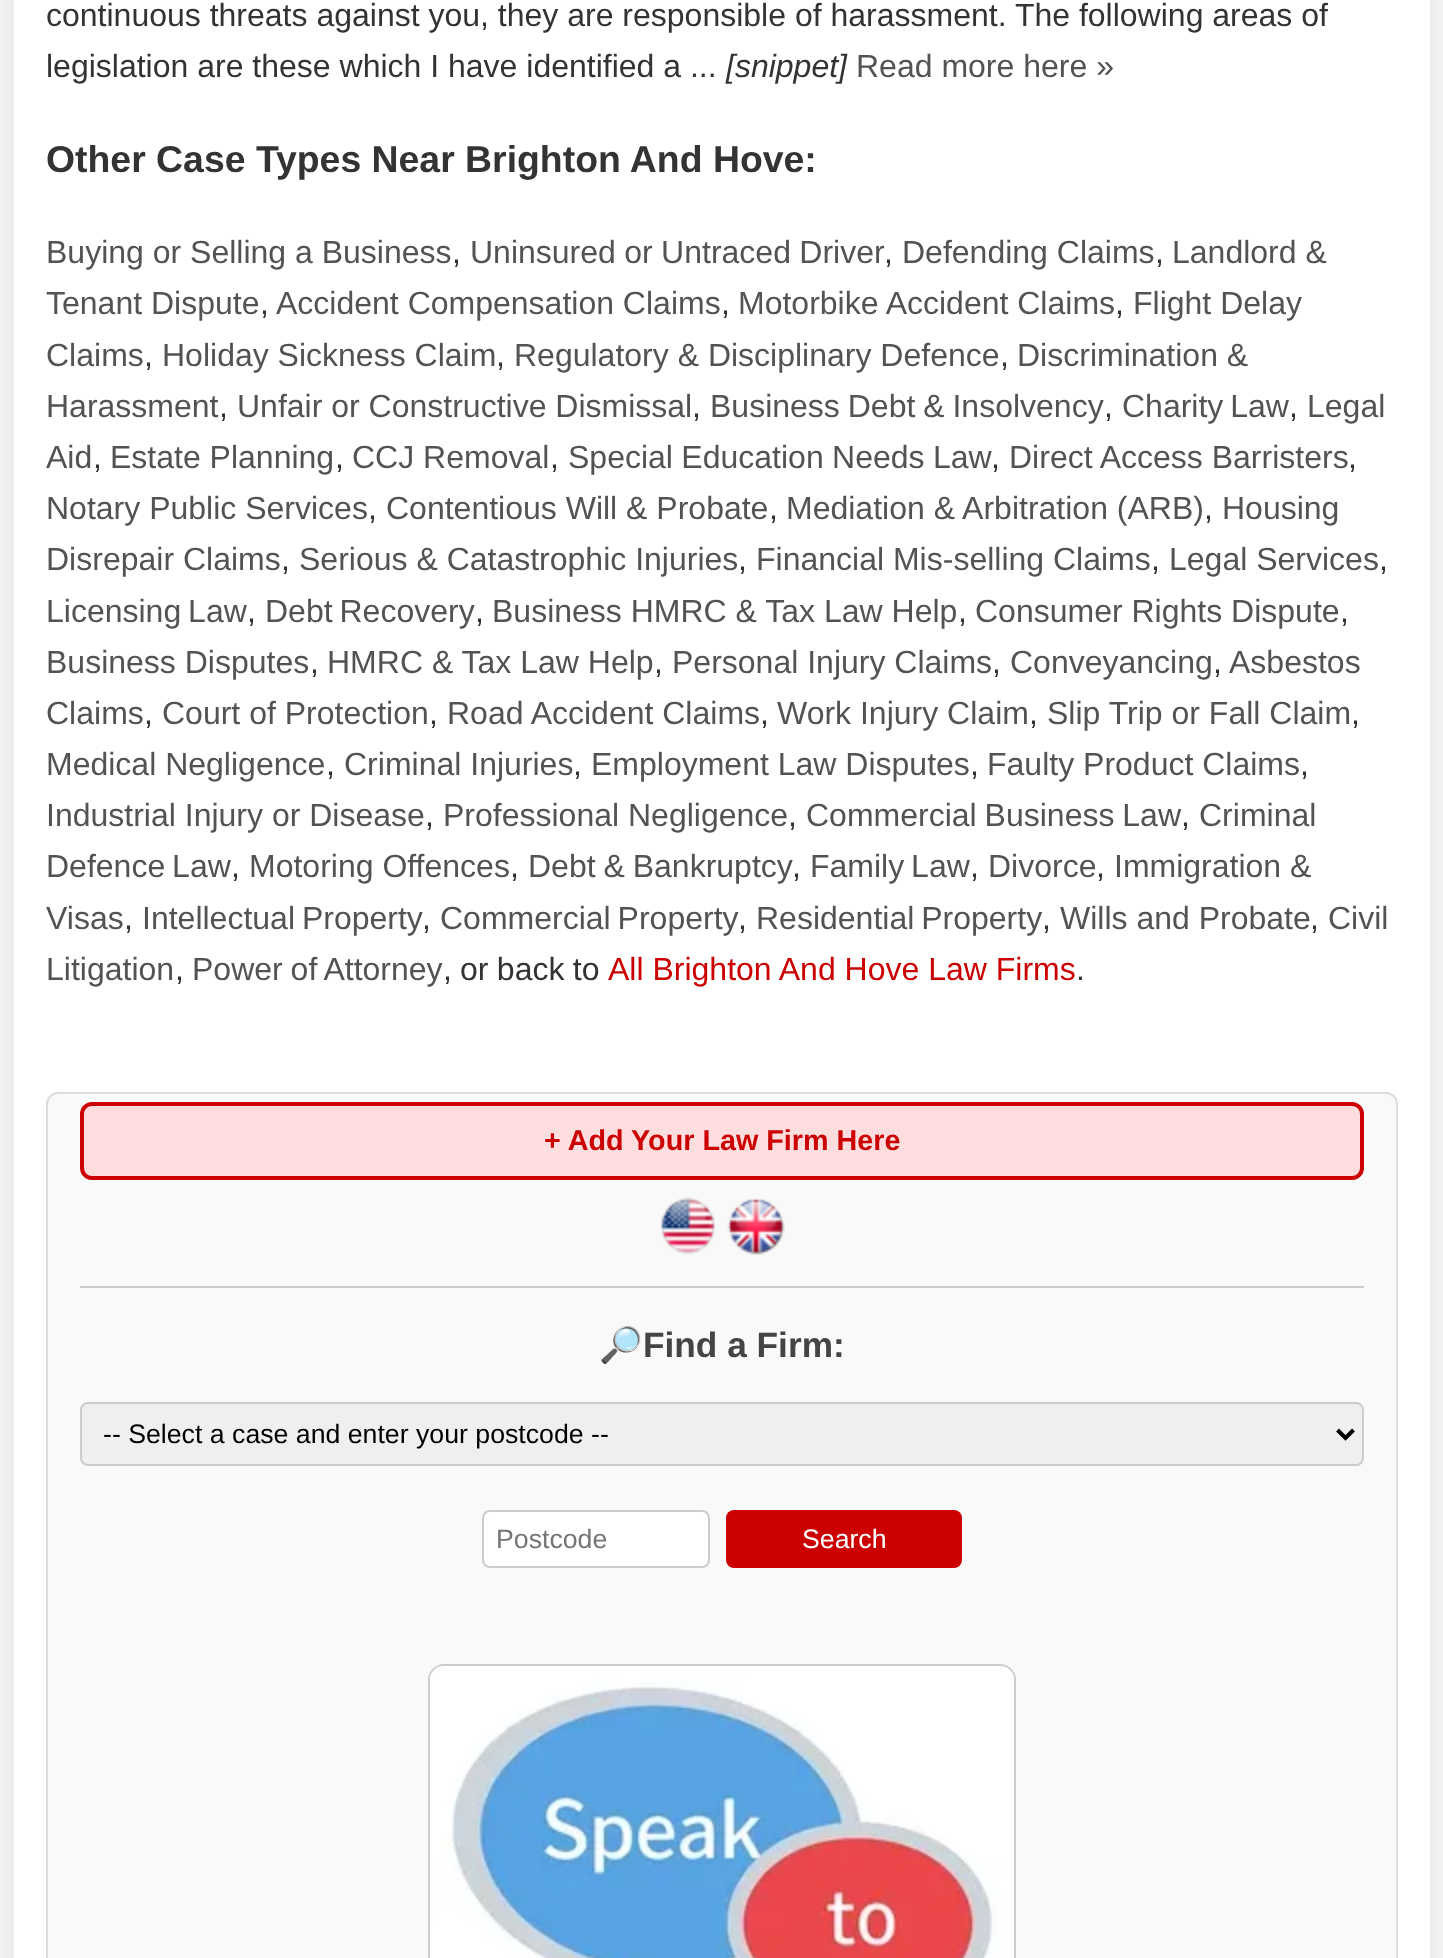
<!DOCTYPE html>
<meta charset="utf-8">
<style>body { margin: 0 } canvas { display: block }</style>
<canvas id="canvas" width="1443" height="1958"></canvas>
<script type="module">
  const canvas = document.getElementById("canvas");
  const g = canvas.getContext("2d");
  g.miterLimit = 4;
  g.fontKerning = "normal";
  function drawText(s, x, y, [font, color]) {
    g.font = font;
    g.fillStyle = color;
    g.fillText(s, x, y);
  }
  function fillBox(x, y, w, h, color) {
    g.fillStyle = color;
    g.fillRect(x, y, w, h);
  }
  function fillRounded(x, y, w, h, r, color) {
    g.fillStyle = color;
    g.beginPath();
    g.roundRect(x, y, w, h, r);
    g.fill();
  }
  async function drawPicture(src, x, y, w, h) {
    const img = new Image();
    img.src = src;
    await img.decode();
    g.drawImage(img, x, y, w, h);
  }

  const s1 = ["32px Liberation Sans", "#333333"];
  const s2 = ["italic 32px Liberation Sans", "#333333"];
  const s3 = ["32px Liberation Sans", "#535353"];
  const s4 = ["bold 37.4px Liberation Sans", "#333333"];
  const s5 = ["32px Liberation Sans", "#CC0000"];
  const s6 = ["bold 28.75px Liberation Sans", "#CC0000"];
  const s7 = ["bold 35.25px Noto Color Emoji", "#444444"];
  const s8 = ["bold 35.25px Liberation Sans", "#444444"];
  const s9 = ["26.7px Liberation Sans", "#000000"];
  const s10 = ["26.7px Liberation Sans", "#757575"];
  const s11 = ["26.7px Liberation Sans", "#FFFFFF"];

  fillBox(0, 0, 1443, 1958, "#F2F2F2");
  g.fillStyle = "rgba(0, 0, 0, 0.05)";
  g.filter = "blur(8px)";
  g.beginPath();
  g.roundRect(14, -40, 1416, 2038, 16);
  g.fill();
  g.filter = "none";
  fillBox(14, 0, 1416, 1958, "#FFFFFF");
  drawText("continuous threats against you, they are responsible of harassment. The following areas of", 46, 26, s1);
  drawText("legislation are these which I have identified a ...", 46, 77, s1);
  drawText("[snippet]", 726, 77, s2);
  drawText("Read more here »", 856, 77, s3);
  drawText("Other Case Types Near Brighton And Hove:", 46, 172, s4);
  drawText("Buying or Selling a Business", 46, 263, s3);
  drawText(",", 452, 263, s1);
  g.wordSpacing = "-0.5px";
  drawText("Uninsured or Untraced Driver", 470, 263, s3);
  g.wordSpacing = "0px";
  drawText(",", 884, 263, s1);
  drawText("Defending Claims", 902, 263, s3);
  drawText(",", 1155, 263, s1);
  drawText("Landlord &", 1172, 263, s3);
  drawText("Tenant Dispute", 46, 314, s3);
  drawText(",", 260, 314, s1);
  drawText("Accident Compensation Claims", 276, 314, s3);
  drawText(",", 721, 314, s1);
  drawText("Motorbike Accident Claims", 738, 314, s3);
  drawText(",", 1115, 314, s1);
  drawText("Flight Delay", 1133, 314, s3);
  drawText("Claims", 46, 366, s3);
  drawText(",", 144, 366, s1);
  drawText("Holiday Sickness Claim", 162, 366, s3);
  drawText(",", 496, 366, s1);
  drawText("Regulatory & Disciplinary Defence", 514, 366, s3);
  drawText(",", 1000, 366, s1);
  drawText("Discrimination &", 1017, 366, s3);
  drawText("Harassment", 46, 417, s3);
  drawText(",", 219, 417, s1);
  drawText("Unfair or Constructive Dismissal", 237, 417, s3);
  drawText(",", 692, 417, s1);
  g.wordSpacing = "-1px";
  drawText("Business Debt & Insolvency", 710, 417, s3);
  g.wordSpacing = "0px";
  drawText(",", 1104, 417, s1);
  g.wordSpacing = "-2px";
  drawText("Charity Law", 1122, 417, s3);
  g.wordSpacing = "0px";
  drawText(",", 1289, 417, s1);
  drawText("Legal", 1307, 417, s3);
  drawText("Aid", 46, 468, s3);
  drawText(",", 93, 468, s1);
  drawText("Estate Planning", 110, 468, s3);
  drawText(",", 335, 468, s1);
  drawText("CCJ Removal", 352, 468, s3);
  drawText(",", 550, 468, s1);
  g.wordSpacing = "-0.5px";
  drawText("Special Education Needs Law", 568, 468, s3);
  g.wordSpacing = "0px";
  drawText(",", 991, 468, s1);
  drawText("Direct Access Barristers", 1009, 468, s3);
  drawText(",", 1348, 468, s1);
  drawText("Notary Public Services", 46, 519, s3);
  drawText(",", 368, 519, s1);
  drawText("Contentious Will & Probate", 386, 519, s3);
  drawText(",", 769, 519, s1);
  drawText("Mediation & Arbitration (ARB)", 786, 519, s3);
  drawText(",", 1204, 519, s1);
  drawText("Housing", 1222, 519, s3);
  drawText("Disrepair Claims", 46, 570, s3);
  drawText(",", 281, 570, s1);
  drawText("Serious & Catastrophic Injuries", 299, 570, s3);
  drawText(",", 738, 570, s1);
  drawText("Financial Mis-selling Claims", 756, 570, s3);
  drawText(",", 1151, 570, s1);
  drawText("Legal Services", 1169, 570, s3);
  drawText(",", 1379, 570, s1);
  g.wordSpacing = "-2px";
  drawText("Licensing Law", 46, 622, s3);
  g.wordSpacing = "0px";
  drawText(",", 247, 622, s1);
  g.wordSpacing = "-2px";
  drawText("Debt Recovery", 265, 622, s3);
  g.wordSpacing = "0px";
  drawText(",", 475, 622, s1);
  drawText("Business HMRC & Tax Law Help", 492, 622, s3);
  drawText(",", 958, 622, s1);
  drawText("Consumer Rights Dispute", 975, 622, s3);
  drawText(",", 1340, 622, s1);
  drawText("Business Disputes", 46, 673, s3);
  drawText(",", 310, 673, s1);
  drawText("HMRC & Tax Law Help", 327, 673, s3);
  drawText(",", 654, 673, s1);
  drawText("Personal Injury Claims", 672, 673, s3);
  drawText(",", 992, 673, s1);
  drawText("Conveyancing", 1010, 673, s3);
  drawText(",", 1213, 673, s1);
  drawText("Asbestos", 1229, 673, s3);
  drawText("Claims", 46, 724, s3);
  drawText(",", 144, 724, s1);
  drawText("Court of Protection", 162, 724, s3);
  drawText(",", 429, 724, s1);
  drawText("Road Accident Claims", 447, 724, s3);
  drawText(",", 760, 724, s1);
  drawText("Work Injury Claim", 777, 724, s3);
  drawText(",", 1029, 724, s1);
  drawText("Slip Trip or Fall Claim", 1047, 724, s3);
  drawText(",", 1351, 724, s1);
  drawText("Medical Negligence", 46, 775, s3);
  drawText(",", 326, 775, s1);
  drawText("Criminal Injuries", 344, 775, s3);
  drawText(",", 573, 775, s1);
  drawText("Employment Law Disputes", 591, 775, s3);
  drawText(",", 970, 775, s1);
  drawText("Faulty Product Claims", 987, 775, s3);
  drawText(",", 1300, 775, s1);
  drawText("Industrial Injury or Disease", 46, 826, s3);
  drawText(",", 425, 826, s1);
  drawText("Professional Negligence", 443, 826, s3);
  drawText(",", 788, 826, s1);
  g.wordSpacing = "-1px";
  drawText("Commercial Business Law", 806, 826, s3);
  g.wordSpacing = "0px";
  drawText(",", 1181, 826, s1);
  drawText("Criminal", 1199, 826, s3);
  g.wordSpacing = "-2px";
  drawText("Defence Law", 46, 877, s3);
  g.wordSpacing = "0px";
  drawText(",", 231, 877, s1);
  drawText("Motoring Offences", 249, 877, s3);
  drawText(",", 510, 877, s1);
  g.wordSpacing = "-1px";
  drawText("Debt & Bankruptcy", 528, 877, s3);
  g.wordSpacing = "0px";
  drawText(",", 792, 877, s1);
  g.wordSpacing = "-2px";
  drawText("Family Law", 810, 877, s3);
  g.wordSpacing = "0px";
  drawText(",", 970, 877, s1);
  drawText("Divorce", 988, 877, s3);
  drawText(",", 1096, 877, s1);
  drawText("Immigration &", 1114, 877, s3);
  drawText("Visas", 46, 929, s3);
  drawText(",", 124, 929, s1);
  g.wordSpacing = "-2px";
  drawText("Intellectual Property", 142, 929, s3);
  g.wordSpacing = "0px";
  drawText(",", 422, 929, s1);
  g.wordSpacing = "-2px";
  drawText("Commercial Property", 440, 929, s3);
  g.wordSpacing = "0px";
  drawText(",", 738, 929, s1);
  g.wordSpacing = "-2px";
  drawText("Residential Property", 756, 929, s3);
  g.wordSpacing = "0px";
  drawText(",", 1042, 929, s1);
  drawText("Wills and Probate", 1060, 929, s3);
  drawText(",", 1310, 929, s1);
  drawText("Civil", 1328, 929, s3);
  drawText("Litigation", 46, 980, s3);
  drawText(",", 175, 980, s1);
  g.wordSpacing = "-1px";
  drawText("Power of Attorney", 192, 980, s3);
  g.wordSpacing = "0px";
  drawText(",", 443, 980, s1);
  g.wordSpacing = "-0.5px";
  drawText("or back to", 460, 980, s1);
  g.wordSpacing = "0px";
  drawText("All Brighton And Hove Law Firms", 608, 980, s5);
  drawText(".", 1076, 980, s1);
  g.fillStyle = "#F9F9F9";
  g.beginPath();
  g.roundRect(47, 1093, 1350, 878, 11);
  g.fill();
  g.strokeStyle = "#DDDDDD";
  g.lineWidth = 2;
  g.stroke();
  g.fillStyle = "#FDDDDD";
  g.beginPath();
  g.roundRect(82, 1104, 1280, 74, 10);
  g.fill();
  g.strokeStyle = "#CC0000";
  g.lineWidth = 4;
  g.stroke();
  drawText("+ Add Your Law Firm Here", 544, 1150, s6);
  fillBox(80, 1286, 1284, 2, "#CCCCCC");
  await drawPicture("pic1.png", 660, 1197, 56, 58);
  await drawPicture("pic2.png", 727, 1198, 58, 57);
  drawText("🔎", 599, 1357, s7);
  drawText("Find a Firm:", 643, 1357, s8);
  g.fillStyle = "#EFEFEF";
  g.beginPath();
  g.roundRect(81, 1403, 1282, 62, 7);
  g.fill();
  g.strokeStyle = "#CCCCCC";
  g.lineWidth = 2;
  g.stroke();
  g.beginPath();
  g.moveTo(1337.5, 1430);
  g.lineTo(1345.5, 1438);
  g.lineTo(1353.5, 1430);
  g.strokeStyle = "#000000";
  g.lineWidth = 4;
  g.stroke();
  drawText("-- Select a case and enter your postcode --", 103, 1443, s9);
  g.fillStyle = "#FFFFFF";
  g.beginPath();
  g.roundRect(483, 1511, 226, 56, 7);
  g.fill();
  g.strokeStyle = "#CCCCCC";
  g.lineWidth = 2;
  g.stroke();
  drawText("Postcode", 496, 1548, s10);
  fillRounded(726, 1510, 236, 58, 8, "#CC0000");
  drawText("Search", 802, 1548, s11);
  g.beginPath();
  g.roundRect(429, 1665, 586, 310, 15);
  g.stroke();
  await drawPicture("pic3.png", 430, 1666, 584, 292);
</script>
